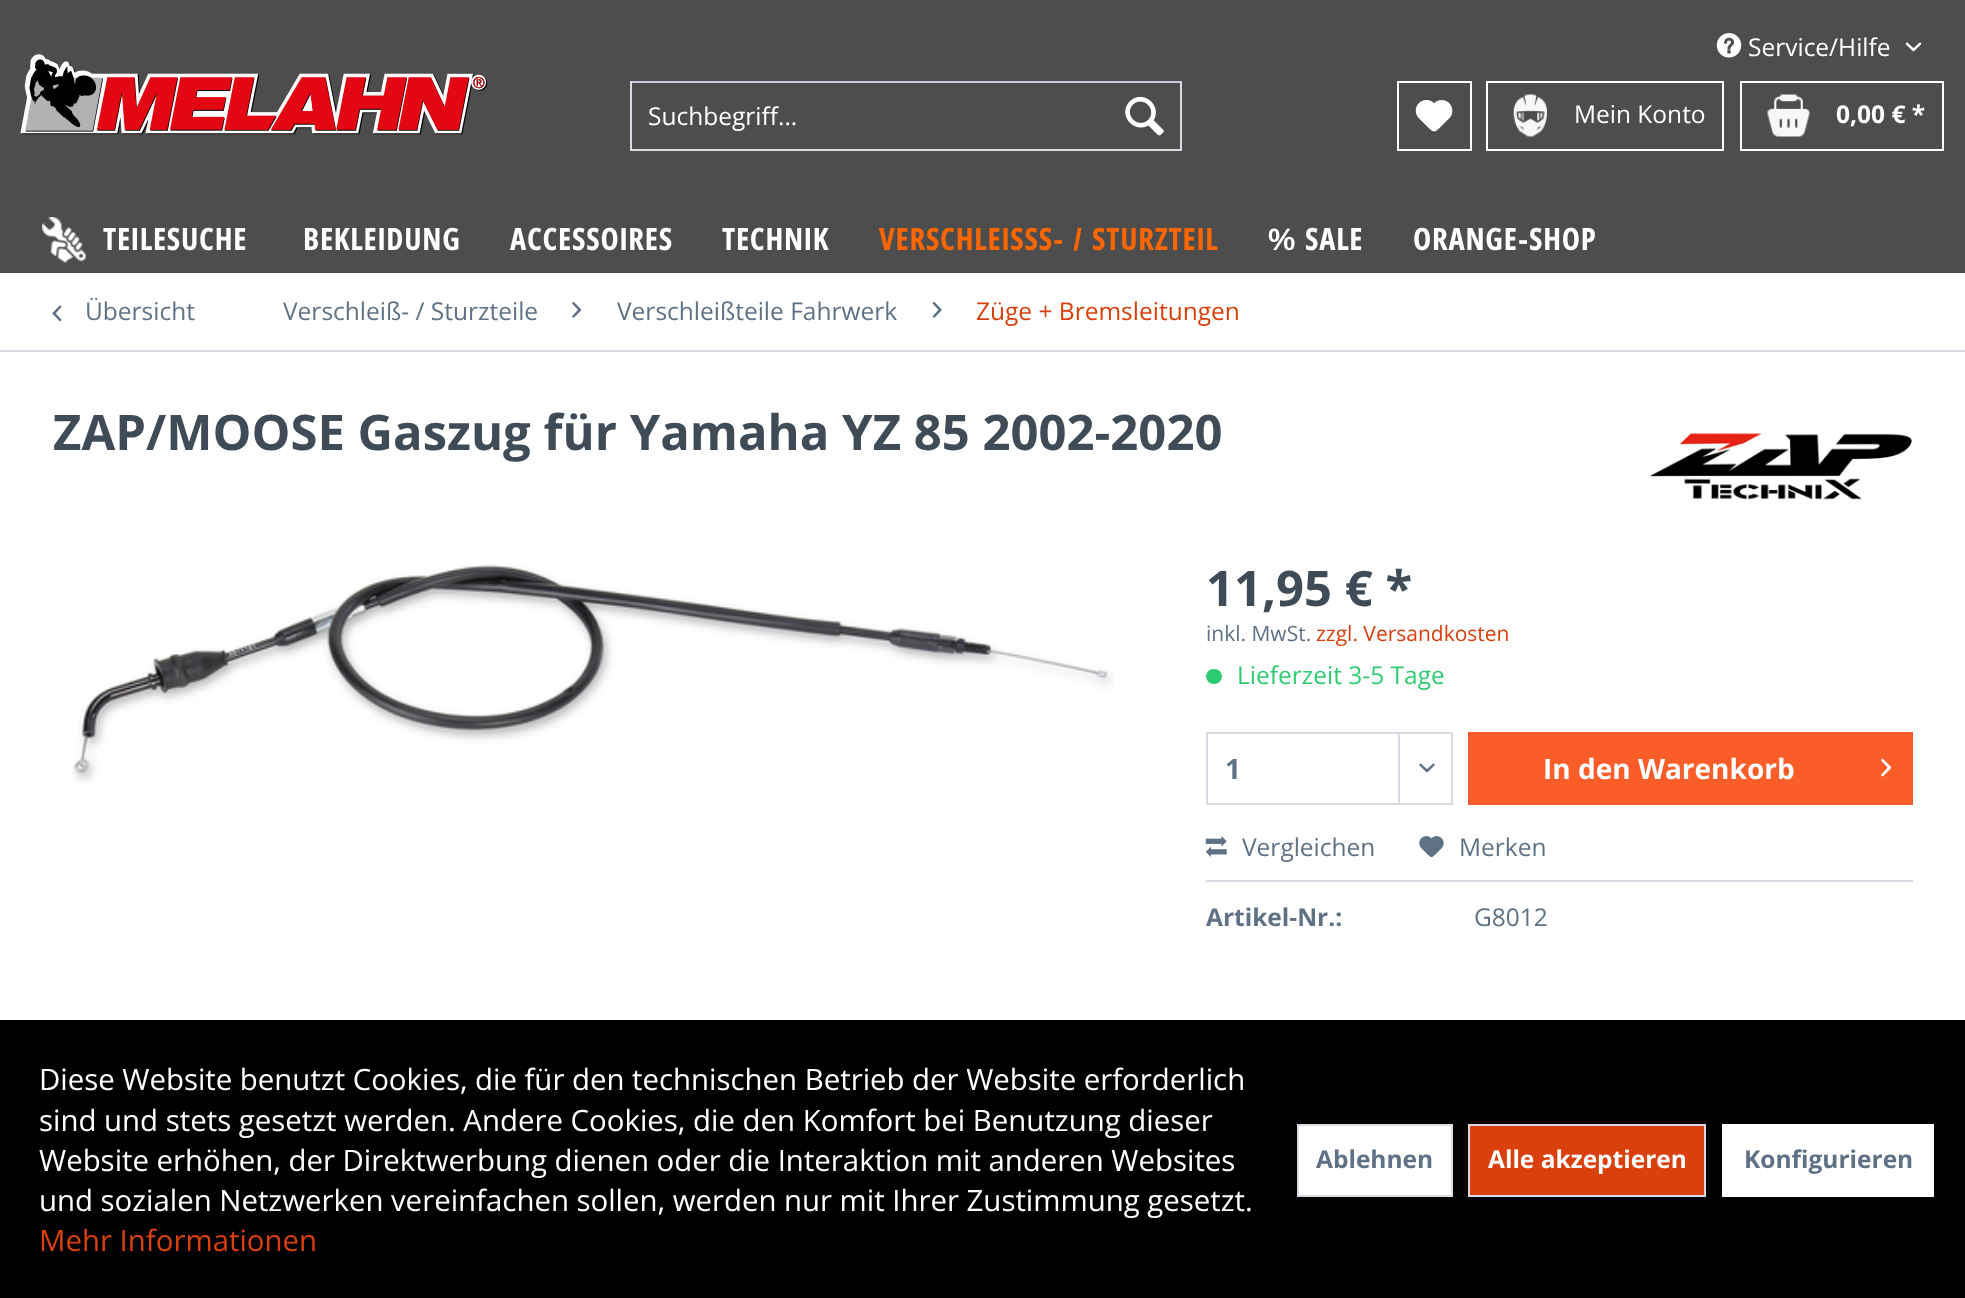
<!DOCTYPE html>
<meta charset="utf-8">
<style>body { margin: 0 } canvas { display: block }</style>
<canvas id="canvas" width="1965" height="1298"></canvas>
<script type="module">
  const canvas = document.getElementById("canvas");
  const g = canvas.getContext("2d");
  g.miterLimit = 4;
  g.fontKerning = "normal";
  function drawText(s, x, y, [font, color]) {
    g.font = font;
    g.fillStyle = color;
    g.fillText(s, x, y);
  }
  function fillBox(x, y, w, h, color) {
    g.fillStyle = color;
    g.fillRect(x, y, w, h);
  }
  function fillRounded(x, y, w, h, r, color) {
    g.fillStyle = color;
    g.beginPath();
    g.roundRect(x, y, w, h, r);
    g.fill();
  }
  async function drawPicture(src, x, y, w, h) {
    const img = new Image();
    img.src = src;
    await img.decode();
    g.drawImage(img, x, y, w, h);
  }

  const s1 = ["24.5px Open Sans", "#FFFFFF"];
  const s2 = ["bold 24.5px Open Sans", "#FFFFFF"];
  const s3 = ["bold 30.75px Open Sans Condensed", "#FFFFFF"];
  const s4 = ["bold 30.75px Open Sans Condensed", "#FF6600"];
  const s5 = ["bold 30.75px Liberation Sans", "#FF6600"];
  const s6 = ["bold 30.75px Liberation Sans", "#FFFFFF"];
  const s7 = ["24.5px Open Sans", "#5F7285"];
  const s8 = ["24.5px Open Sans", "#D9400B"];
  const s9 = ["bold 49px Open Sans", "#3F4C58"];
  const s10 = ["21px Open Sans", "#5F7285"];
  const s11 = ["21px Open Sans", "#D9400B"];
  const s12 = ["24.5px Open Sans", "#2ECC71"];
  const s13 = ["bold 28px Open Sans", "#5F7285"];
  const s14 = ["bold 28px Open Sans", "#FFFFFF"];
  const s15 = ["bold 24.5px Open Sans", "#5F7285"];
  const s16 = ["29.4px Open Sans", "#FFFFFF"];
  const s17 = ["29.4px Open Sans", "#D9400B"];

  fillBox(0, 0, 1965, 1298, "#FFFFFF");
  fillBox(0, 0, 1965, 273, "#4D4D4D");
  await drawPicture("pic1.png", 1716, 33, 26, 25);
  drawText("Service/Hilfe", 1748, 56, s1);
  await drawPicture("pic2.png", 1905, 42, 17, 10);
  await drawPicture("pic3.png", 20, 54, 468, 81);
  fillBox(630, 81, 551, 2, "#CBCBDB");
  fillBox(1180, 81, 2, 70, "#DADAE5");
  fillBox(630, 149, 551, 2, "#DADAE5");
  fillBox(630, 81, 2, 70, "#DADAE5");
  drawText("Suchbegriff...", 648, 125, s1);
  await drawPicture("pic4.png", 1125, 96, 39, 40);
  g.strokeStyle = "#FFFFFF";
  g.lineWidth = 2;
  g.strokeRect(1398, 82, 73, 68);
  await drawPicture("pic5.png", 1415, 100, 38, 32);
  g.strokeRect(1487, 82, 236, 68);
  await drawPicture("pic6.png", 1513, 94, 34, 43);
  drawText("Mein Konto", 1574, 123, s1);
  g.strokeRect(1741, 82, 202, 68);
  await drawPicture("pic7.png", 1767, 94, 43, 43);
  drawText("0,00 € *", 1836, 123, s2);
  await drawPicture("pic8.png", 42, 217, 44, 46);
  g.letterSpacing = "0.75px";
  drawText("TEILESUCHE", 103, 250, s3);
  drawText("BEKLEIDUNG", 303, 250, s3);
  drawText("ACCESSOIRES", 510, 250, s3);
  drawText("TECHNIK", 722, 250, s3);
  drawText("VERSCHLEISSS", 879, 250, s4);
  drawText("- /", 1053, 250, s5);
  drawText("STURZTEIL", 1092, 250, s4);
  drawText("%", 1268, 250, s6);
  drawText("SALE", 1305, 250, s3);
  drawText("ORANGE", 1413, 250, s3);
  drawText("-", 1518, 250, s6);
  drawText("SHOP", 1529, 250, s3);
  fillBox(0, 350, 1965, 2, "#DADAE5");
  await drawPicture("pic9.png", 52, 305, 10, 17);
  g.letterSpacing = "0px";
  drawText("Übersicht", 85, 320, s7);
  drawText("Verschleiß- / Sturzteile", 283, 320, s7);
  await drawPicture("pic10.png", 572, 302, 10, 16);
  drawText("Verschleißteile Fahrwerk", 617, 320, s7);
  await drawPicture("pic11.png", 932, 302, 10, 16);
  drawText("Züge + Bremsleitungen", 976, 320, s8);
  drawText("ZAP/MOOSE Gaszug für Yamaha YZ 85 2002-2020", 53, 450, s9);
  await drawPicture("pic12.png", 1650, 433, 262, 67);
  await drawPicture("pic13.png", 71, 564, 1044, 220);
  drawText("11,95 € *", 1206, 606, s9);
  drawText("inkl. MwSt.", 1206, 641, s10);
  drawText("zzgl. Versandkosten", 1316, 641, s11);
  fillRounded(1206, 669, 16, 15, 7.5, "#2ECC71");
  drawText("Lieferzeit 3-5 Tage", 1237, 684, s12);
  g.strokeStyle = "#DADAE5";
  g.strokeRect(1207, 733, 245, 71);
  drawText("1", 1225, 779, s13);
  fillBox(1398, 733, 2, 70, "#DADAE5");
  await drawPicture("pic14.png", 1419, 763, 16, 10);
  fillBox(1468, 732, 445, 73, "#FA5D27");
  drawText("In den Warenkorb", 1543, 779, s14);
  await drawPicture("pic15.png", 1881, 758, 11, 19);
  fillBox(1206, 880, 707, 2, "#DADAE5");
  await drawPicture("pic16.png", 1205, 836, 22, 21);
  drawText("Vergleichen", 1242, 856, s7);
  await drawPicture("pic17.png", 1419, 836, 25, 21);
  drawText("Merken", 1459, 856, s7);
  drawText("Artikel-Nr.:", 1206, 926, s15);
  drawText("G8012", 1474, 926, s7);
  fillBox(0, 1020, 1965, 278, "#000000");
  g.wordSpacing = "-0.1px";
  drawText("Diese Website benutzt Cookies, die für den technischen Betrieb der Website erforderlich", 39, 1090, s16);
  g.wordSpacing = "0px";
  drawText("sind und stets gesetzt werden. Andere Cookies, die den Komfort bei Benutzung dieser", 39, 1131, s16);
  g.wordSpacing = "-0.1px";
  drawText("Website erhöhen, der Direktwerbung dienen oder die Interaktion mit anderen Websites", 39, 1171, s16);
  drawText("und sozialen Netzwerken vereinfachen sollen, werden nur mit Ihrer Zustimmung gesetzt.", 39, 1211, s16);
  g.wordSpacing = "0px";
  drawText("Mehr Informationen", 39, 1251, s17);
  g.fillStyle = "#FFFFFF";
  g.beginPath();
  g.rect(1298, 1125, 154, 71);
  g.fill();
  g.stroke();
  drawText("Ablehnen", 1316, 1168, s15);
  g.fillStyle = "#D9400B";
  g.beginPath();
  g.rect(1469, 1125, 236, 71);
  g.fill();
  g.stroke();
  drawText("Alle akzeptieren", 1488, 1168, s2);
  fillBox(1722, 1124, 212, 73, "#FFFFFF");
  drawText("Konfigurieren", 1744, 1168, s15);
</script>
